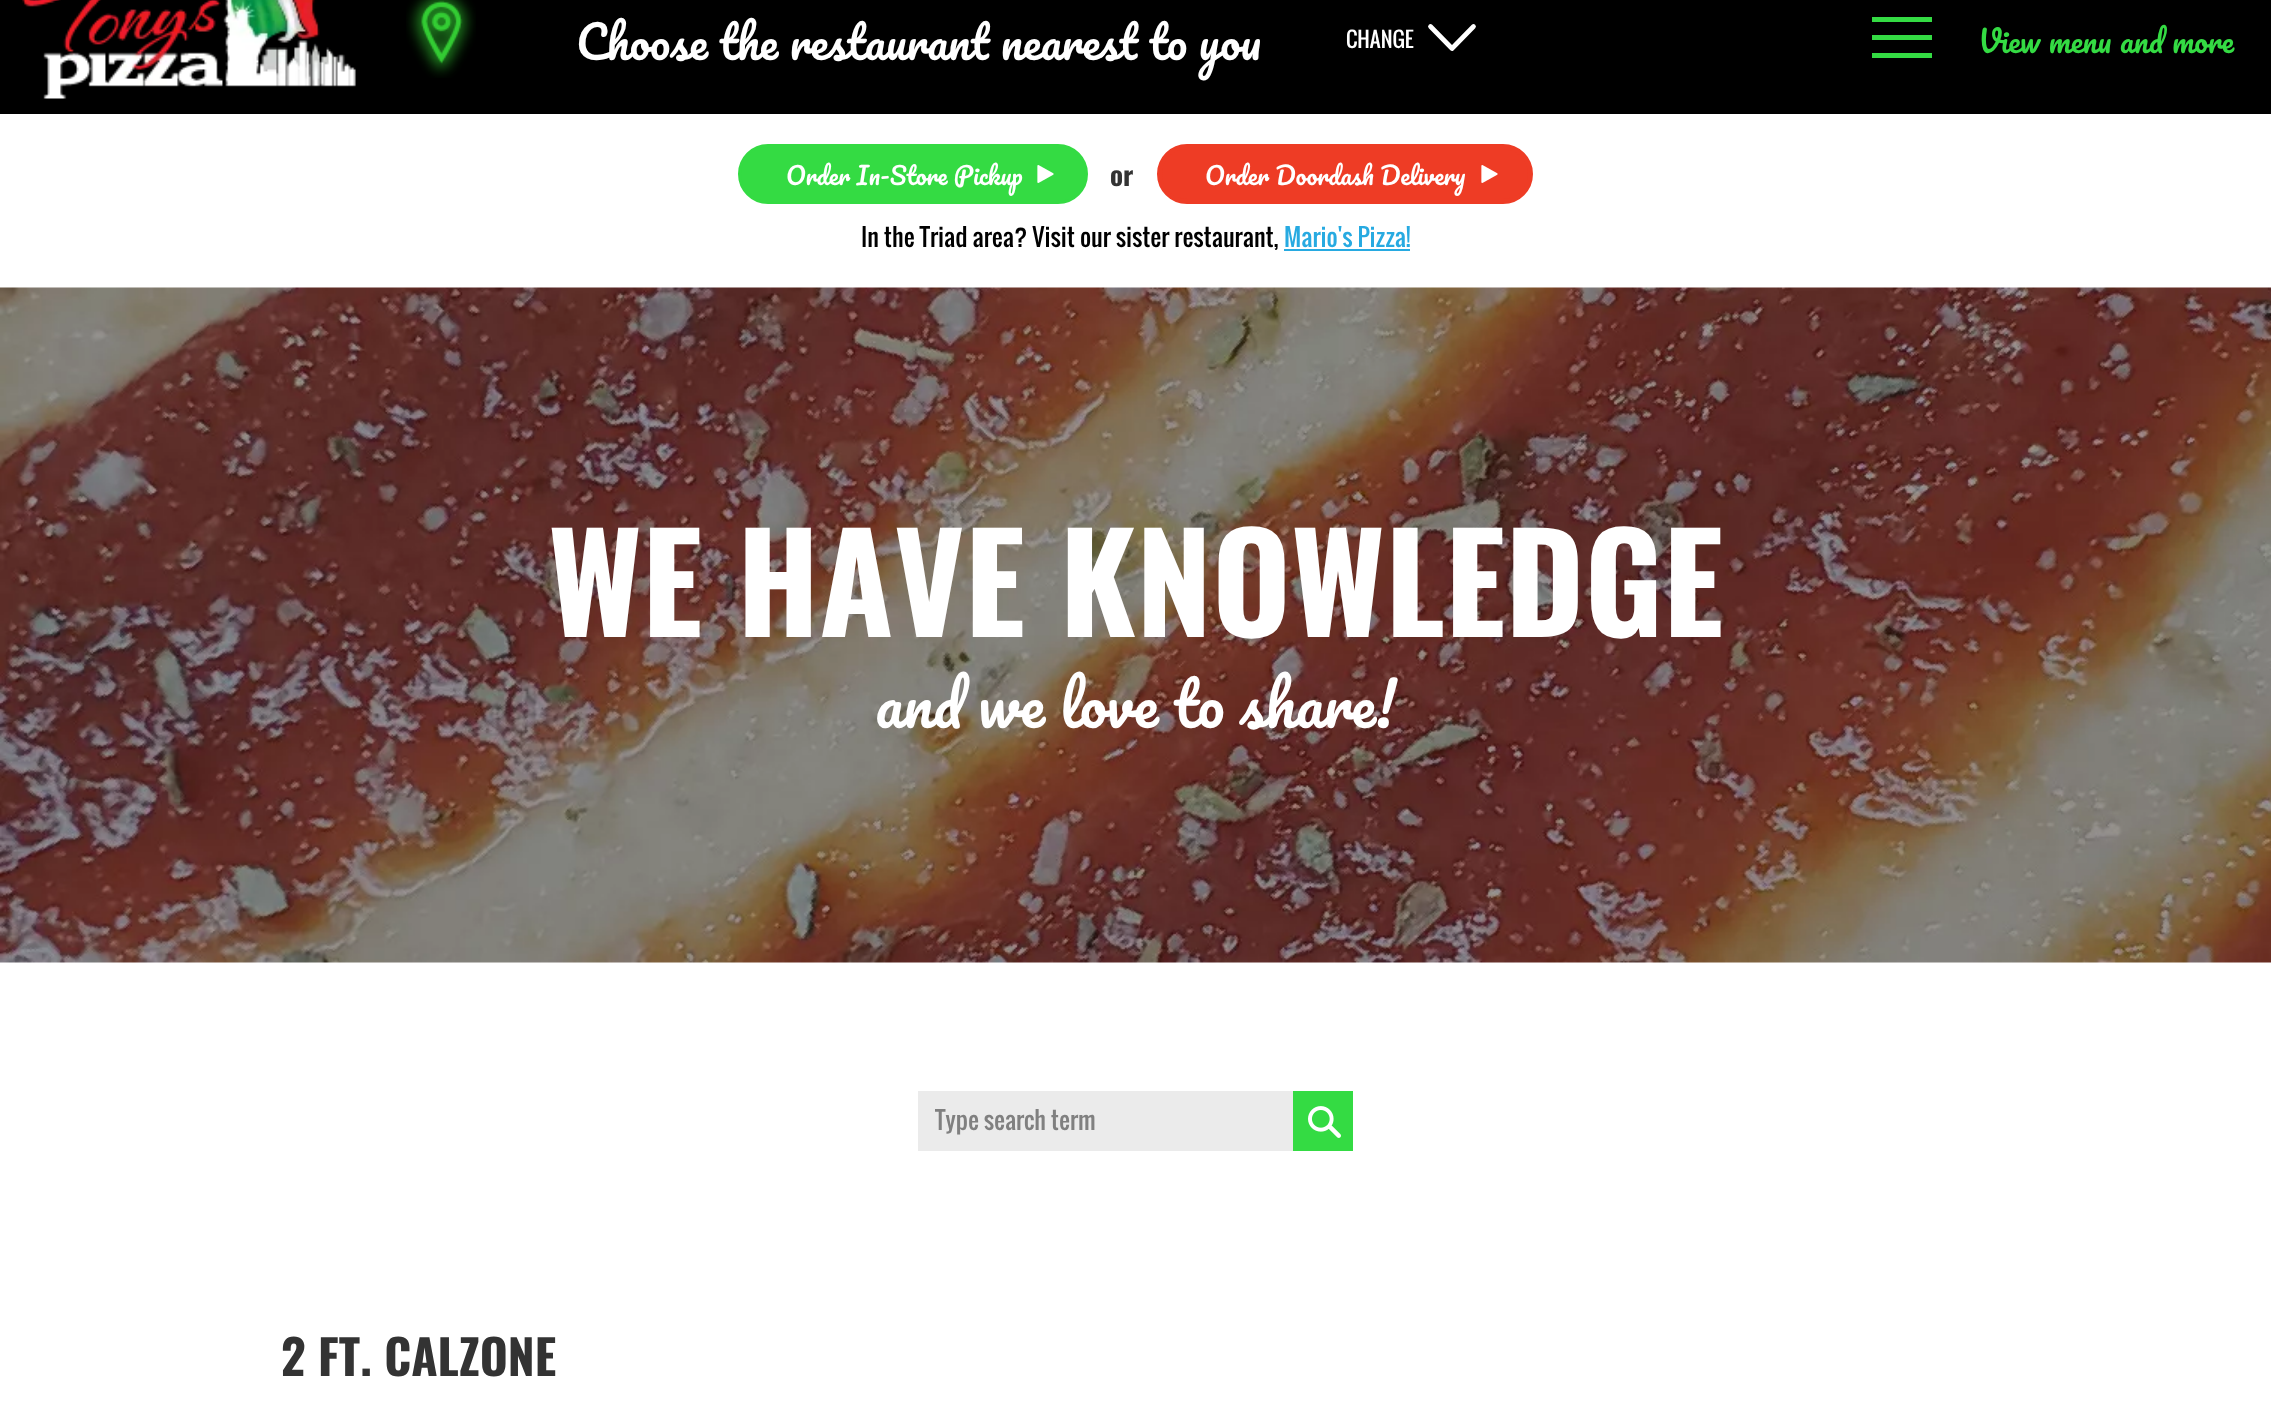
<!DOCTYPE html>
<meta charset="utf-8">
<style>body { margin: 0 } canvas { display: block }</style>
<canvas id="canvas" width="2271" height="1408"></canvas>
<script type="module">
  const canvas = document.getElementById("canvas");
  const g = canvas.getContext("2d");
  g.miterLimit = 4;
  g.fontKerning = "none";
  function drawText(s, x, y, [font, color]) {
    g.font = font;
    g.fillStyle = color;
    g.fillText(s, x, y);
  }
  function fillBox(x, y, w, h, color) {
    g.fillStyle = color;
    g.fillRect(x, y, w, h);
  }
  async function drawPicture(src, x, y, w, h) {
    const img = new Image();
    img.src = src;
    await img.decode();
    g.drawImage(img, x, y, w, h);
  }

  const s1 = ["45px Pacifico", "#FFFFFF"];
  const s2 = ["21px Oswald", "#FFFFFF"];
  const s3 = ["30px Pacifico", "#34DB43"];
  const s4 = ["24px Pacifico", "#FFFFFF"];
  const s5 = ["bold 27px Oswald", "#333333"];
  const s6 = ["24px Oswald", "#000000"];
  const s7 = ["24px Oswald", "#27AAE1"];
  const s8 = ["bold 135px Oswald", "#FFFFFF"];
  const s9 = ["60px Pacifico", "#FFFFFF"];
  const s10 = ["24px Oswald", "#808080"];
  const s11 = ["bold 48px Oswald", "#333333"];

  fillBox(0, 0, 2271, 1408, "#FFFFFF");
  fillBox(0, 0, 2271, 114, "#000000");
  await drawPicture("pic1.png", 22, 0, 334, 99);
  await drawPicture("pic2.png", 406, 0, 70, 78);
  g.wordSpacing = "-0.5px";
  drawText("Choose the restaurant nearest to you", 576, 60, s1);
  g.wordSpacing = "0px";
  drawText("CHANGE", 1346, 48, s2);
  g.beginPath();
  g.moveTo(1473.5, 26.5);
  g.lineTo(1452, 48.5);
  g.lineTo(1430.5, 26.5);
  g.strokeStyle = "#FFFFFF";
  g.lineWidth = 4.7;
  g.lineCap = "round";
  g.lineJoin = "round";
  g.stroke();
  fillBox(1872, 53, 60, 5, "#34DB43");
  fillBox(1872, 35, 60, 5, "#34DB43");
  fillBox(1872, 17, 60, 5, "#34DB43");
  g.wordSpacing = "0.5px";
  drawText("View menu and more", 1978, 53, s3);
  g.beginPath();
  g.roundRect(739.5, 145.5, 347, 57, 28.5);
  g.fill();
  g.strokeStyle = "#34DB43";
  g.lineWidth = 3;
  g.lineJoin = "miter";
  g.stroke();
  g.wordSpacing = "0px";
  drawText("Order In-Store Pickup", 786, 185, s4);
  await drawPicture("pic3.png", 1037, 165, 17, 18);
  drawText("or", 1110, 186, s5);
  g.fillStyle = "#EE3C25";
  g.beginPath();
  g.roundRect(1159.5, 146.5, 371, 55, 27.5);
  g.fill();
  g.strokeStyle = "#EE3C25";
  g.lineWidth = 5;
  g.stroke();
  drawText("Order Doordash Delivery", 1205, 185, s4);
  await drawPicture("pic4.png", 1481, 165, 17, 18);
  drawText("In the Triad area? Visit our sister restaurant,", 861, 247, s6);
  drawText("Mario's Pizza!", 1284, 247, s7);
  fillBox(1284, 249, 126, 2, "#27AAE1");
  await drawPicture("pic5.png", 0, 287, 2271, 676);
  drawText("WE HAVE KNOWLEDGE", 548, 637, s8);
  g.wordSpacing = "-0.5px";
  drawText("and we love to share!", 875, 728, s9);
  fillBox(918, 1091, 375, 60, "#EBEBEB");
  g.save();
  g.beginPath();
  g.rect(935, 1103, 319, 36);
  g.clip();
  g.wordSpacing = "0px";
  drawText("Type search term", 935, 1130, s10);
  g.restore();
  fillBox(1293, 1091, 60, 60, "#34DB43");
  await drawPicture("pic6.png", 1308, 1106, 33, 32);
  g.wordSpacing = "0px";
  drawText("2 FT. CALZONE", 281, 1376, s11);
</script>
